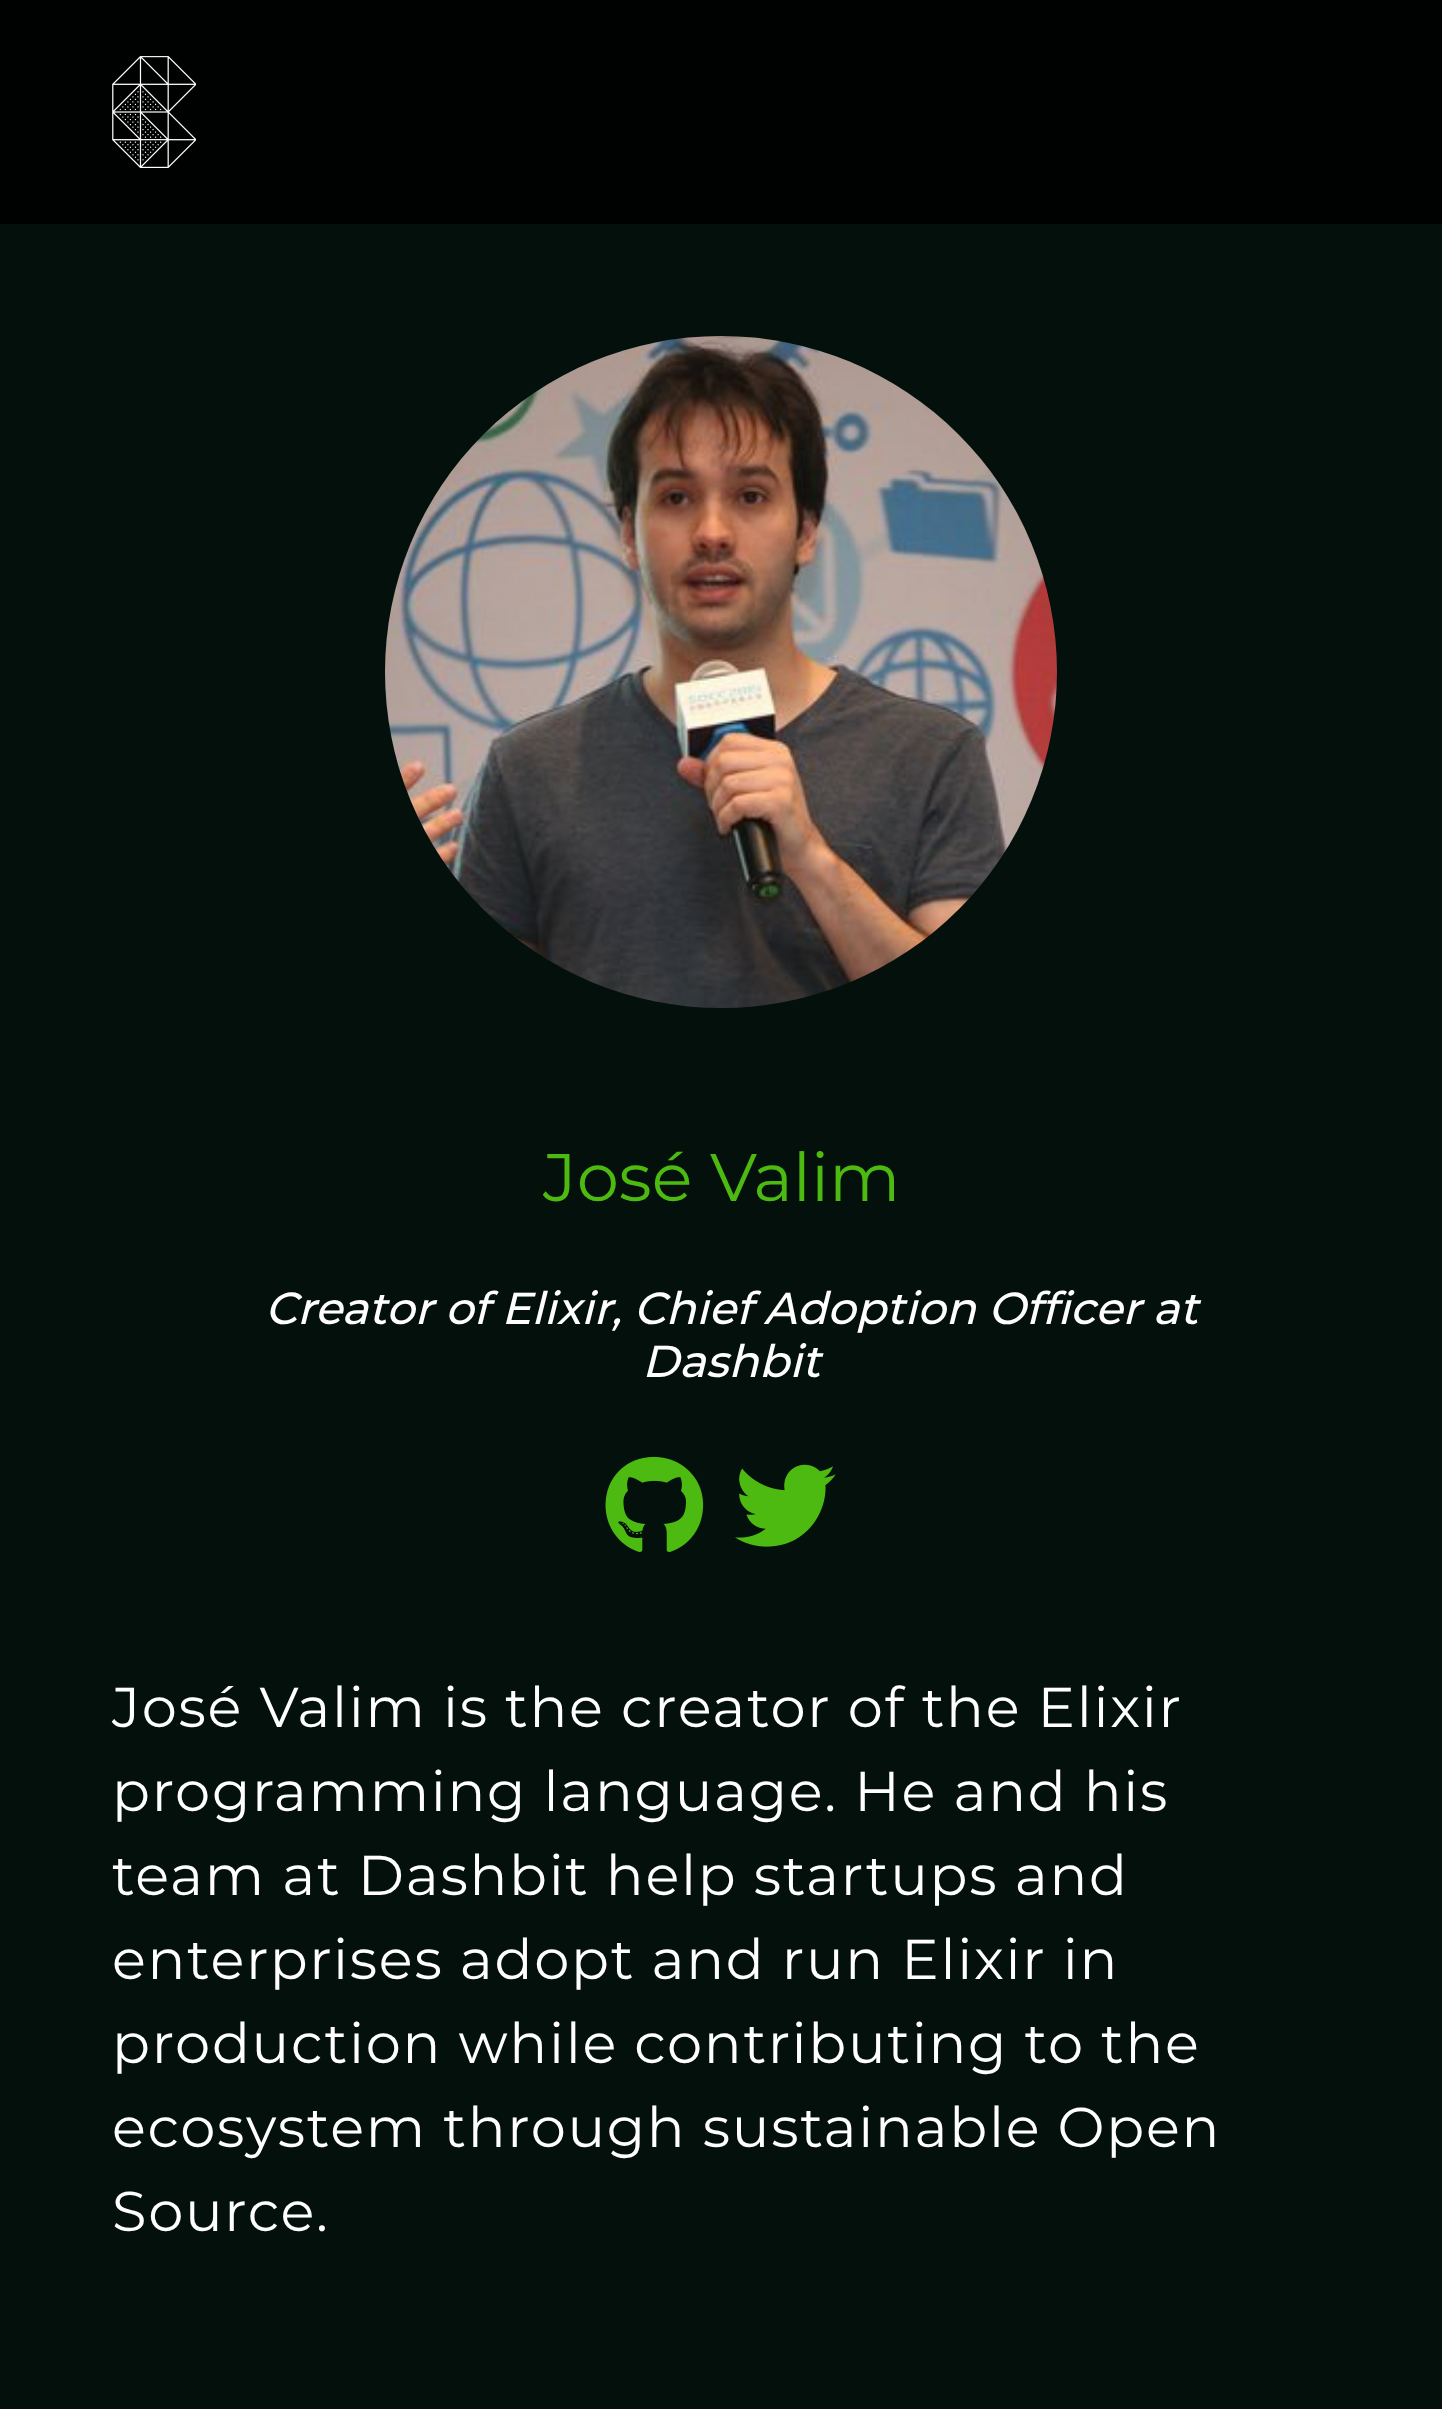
<!DOCTYPE html>
<meta charset="utf-8">
<style>body { margin: 0 } canvas { display: block }</style>
<canvas id="canvas" width="1442" height="2409"></canvas>
<script type="module">
  const canvas = document.getElementById("canvas");
  const g = canvas.getContext("2d");
  g.miterLimit = 4;
  g.fontKerning = "normal";
  function drawText(s, x, y, [font, color]) {
    g.font = font;
    g.fillStyle = color;
    g.fillText(s, x, y);
  }
  function fillBox(x, y, w, h, color) {
    g.fillStyle = color;
    g.fillRect(x, y, w, h);
  }
  async function drawPicture(src, x, y, w, h) {
    const img = new Image();
    img.src = src;
    await img.decode();
    g.drawImage(img, x, y, w, h);
  }

  const s1 = ["67.25px Montserrat", "#4DBA12"];
  const s2 = ["italic 500 44.8px Montserrat", "#FFFFFF"];
  const s3 = ["56px Montserrat", "#FFFFFF"];

  fillBox(0, 0, 1442, 2409, "#04100C");
  fillBox(0, 0, 1442, 224, "#000101");
  await drawPicture("pic1.png", 112, 56, 84, 112);
  await drawPicture("pic2.png", 385, 336, 672, 672);
  drawText("José Valim", 543, 1201, s1);
  drawText("Creator of Elixir, Chief Adoption Officer at", 265, 1324, s2);
  drawText("Dashbit", 642, 1377, s2);
  await drawPicture("pic3.png", 605, 1456, 99, 96);
  await drawPicture("pic4.png", 735, 1464, 101, 83);
  g.letterSpacing = "1.7px";
  drawText("José Valim is the creator of the Elixir", 112, 1727, s3);
  drawText("programming language. He and his", 112, 1811, s3);
  drawText("team at Dashbit help startups and", 112, 1895, s3);
  drawText("enterprises adopt and run Elixir in", 112, 1979, s3);
  drawText("production while contributing to the", 112, 2063, s3);
  drawText("ecosystem through sustainable Open", 112, 2147, s3);
  drawText("Source.", 112, 2231, s3);
</script>
